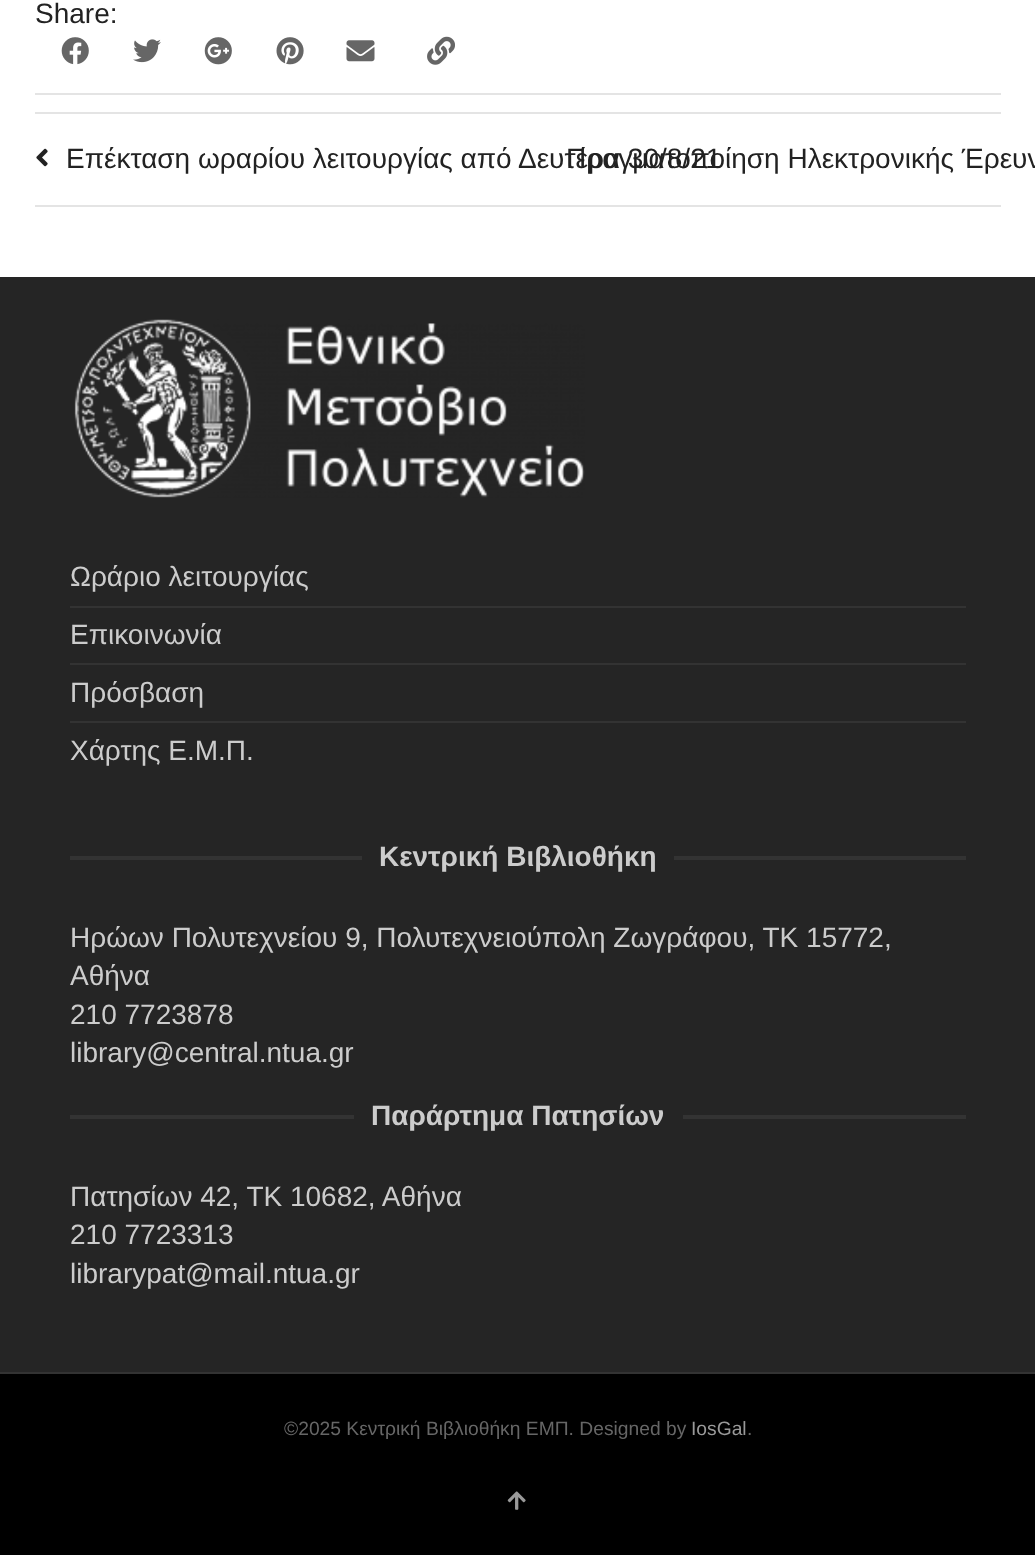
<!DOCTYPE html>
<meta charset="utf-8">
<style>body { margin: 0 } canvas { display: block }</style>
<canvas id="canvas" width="1035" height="1555"></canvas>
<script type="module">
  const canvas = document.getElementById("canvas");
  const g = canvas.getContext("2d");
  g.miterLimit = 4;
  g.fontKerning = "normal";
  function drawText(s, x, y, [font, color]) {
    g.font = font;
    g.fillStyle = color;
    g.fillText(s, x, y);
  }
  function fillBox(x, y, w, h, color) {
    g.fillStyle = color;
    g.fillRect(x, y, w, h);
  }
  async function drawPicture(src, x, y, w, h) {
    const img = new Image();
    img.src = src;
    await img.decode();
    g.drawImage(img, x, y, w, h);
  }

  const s1 = ["28px Liberation Sans", "#222222"];
  const s2 = ["28px Liberation Sans", "#CCCCCC"];
  const s3 = ["bold 28px Liberation Sans", "#CCCCCC"];
  const s4 = ["19.25px Liberation Sans", "#666666"];
  const s5 = ["19.25px Liberation Sans", "#999999"];

  fillBox(0, 0, 1035, 1555, "#FFFFFF");
  fillBox(35, 93, 966, 2, "#E4E4E4");
  drawText("Share:", 35, 23, s1);
  await drawPicture("pic1.png", 61, 37, 28, 28);
  await drawPicture("pic2.png", 133, 39, 28, 24);
  await drawPicture("pic3.png", 204, 37, 28, 28);
  await drawPicture("pic4.png", 276, 37, 28, 28);
  await drawPicture("pic5.png", 346, 40, 29, 22);
  await drawPicture("pic6.png", 427, 36, 28, 29);
  fillBox(35, 112, 966, 2, "#E4E4E4");
  fillBox(35, 205, 966, 2, "#E4E4E4");
  await drawPicture("pic7.png", 36, 148, 12, 19);
  drawText("Επέκταση ωραρίου λειτουργίας από Δευτέρα 30/8/21", 66, 168, s1);
  drawText("Πραγματοποίηση Ηλεκτρονικής Έρευν", 566, 168, s1);
  fillBox(0, 277, 1035, 1095, "#252525");
  await drawPicture("pic8.png", 74, 319, 511, 179);
  drawText("Ωράριο λειτουργίας", 70, 586, s2);
  fillBox(70, 606, 896, 2, "#333333");
  drawText("Επικοινωνία", 70, 644, s2);
  fillBox(70, 663, 896, 2, "#333333");
  drawText("Πρόσβαση", 70, 702, s2);
  fillBox(70, 721, 896, 2, "#333333");
  drawText("Χάρτης Ε.Μ.Π.", 70, 760, s2);
  fillBox(70, 856, 896, 4, "#333333");
  fillBox(362, 856, 312, 4, "#252525");
  drawText("Κεντρική Βιβλιοθήκη", 379, 866, s3);
  drawText("Ηρώων Πολυτεχνείου 9, Πολυτεχνειούπολη Ζωγράφου, ΤΚ 15772,", 70, 947, s2);
  drawText("Αθήνα", 70, 985, s2);
  drawText("210 7723878", 70, 1024, s2);
  drawText("library@central.ntua.gr", 70, 1062, s2);
  fillBox(70, 1115, 896, 4, "#333333");
  fillBox(354, 1115, 329, 4, "#252525");
  drawText("Παράρτημα Πατησίων", 371, 1125, s3);
  drawText("Πατησίων 42, ΤΚ 10682, Αθήνα", 70, 1206, s2);
  drawText("210 7723313", 70, 1244, s2);
  drawText("librarypat@mail.ntua.gr", 70, 1283, s2);
  fillBox(0, 1374, 1035, 181, "#000000");
  fillBox(0, 1372, 1035, 2, "#333333");
  drawText("©2025 Κεντρική Βιβλιοθήκη ΕΜΠ. Designed by", 284, 1435, s4);
  drawText("IosGal", 691, 1435, s5);
  drawText(".", 747, 1435, s4);
  await drawPicture("pic9.png", 507, 1491, 19, 19);
</script>
